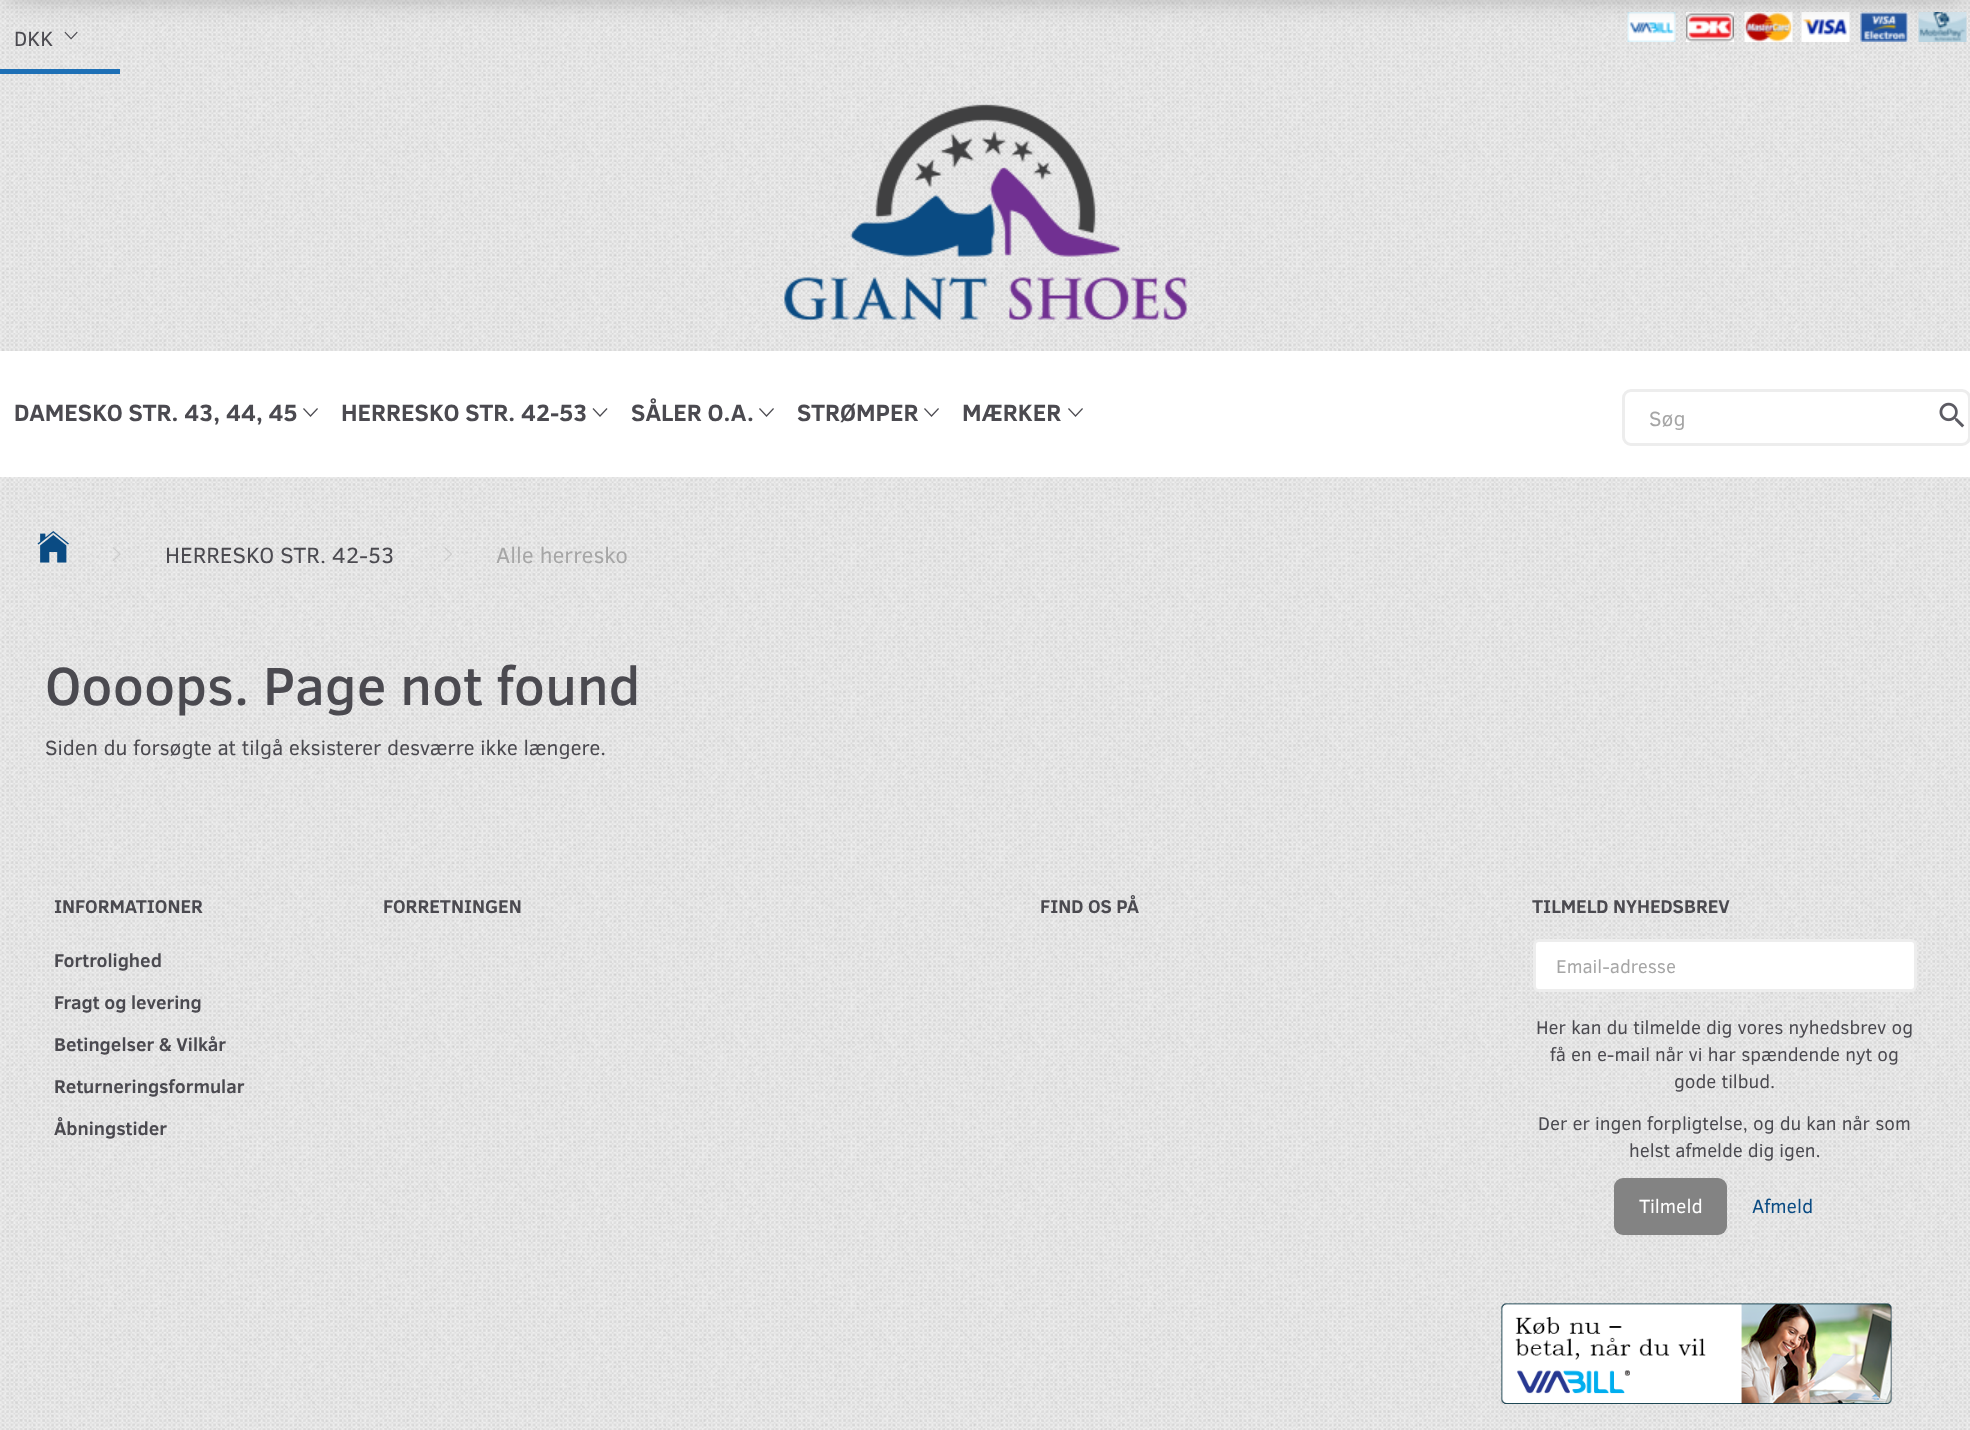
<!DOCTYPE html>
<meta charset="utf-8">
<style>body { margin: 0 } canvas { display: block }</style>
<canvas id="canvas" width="1970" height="1430"></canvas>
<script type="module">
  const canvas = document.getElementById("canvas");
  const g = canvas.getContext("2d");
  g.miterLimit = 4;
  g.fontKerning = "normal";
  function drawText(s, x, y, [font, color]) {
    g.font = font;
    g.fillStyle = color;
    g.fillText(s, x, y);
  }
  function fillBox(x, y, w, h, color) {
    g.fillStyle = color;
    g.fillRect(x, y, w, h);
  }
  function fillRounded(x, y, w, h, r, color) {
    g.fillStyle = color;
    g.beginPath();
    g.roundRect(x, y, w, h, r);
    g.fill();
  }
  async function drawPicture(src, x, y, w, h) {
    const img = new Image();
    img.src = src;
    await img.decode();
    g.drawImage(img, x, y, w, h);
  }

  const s1 = ["21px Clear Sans", "#4B4A50"];
  const s2 = ["bold 24px Clear Sans", "#4B4A50"];
  const s3 = ["21px Clear Sans", "#A6A6A6"];
  const s4 = ["22.5px Clear Sans", "#4B4A50"];
  const s5 = ["22.5px Clear Sans", "#A6A6A6"];
  const s6 = ["500 54.6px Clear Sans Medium", "#4B4A50"];
  const s7 = ["bold 18.9px Clear Sans", "#4B4A50"];
  const s8 = ["18.9px Clear Sans", "#A6A6A6"];
  const s9 = ["18.9px Clear Sans", "#4B4A50"];
  const s10 = ["19.5px Clear Sans", "#FFFFFF"];
  const s11 = ["19.5px Clear Sans", "#0A4B83"];

  fillBox(0, 0, 1970, 1430, "#FFFFFF");
  await drawPicture("pic1.png", 0, 0, 1970, 1430);
  await drawPicture("pic2.png", 64, 31, 14, 9);
  await drawPicture("pic3.png", 1627, 12, 49, 30);
  await drawPicture("pic4.png", 1686, 12, 48, 30);
  await drawPicture("pic5.png", 1744, 12, 49, 30);
  await drawPicture("pic6.png", 1801, 12, 49, 30);
  await drawPicture("pic7.png", 1860, 12, 48, 30);
  await drawPicture("pic8.png", 1918, 12, 49, 30);
  g.fillStyle = "#949494";
  g.filter = "blur(15px)";
  g.beginPath();
  g.rect(8, -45, 1956, 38);
  g.fill();
  g.filter = "none";
  fillBox(0, 69, 120, 5, "#1E70B6");
  drawText("DKK", 14, 46, s1);
  await drawPicture("pic9.png", 784, 104, 403, 216);
  fillBox(0, 351, 1970, 126, "#FFFFFF");
  drawText("DAMESKO STR. 43, 44, 45", 14, 421, s2);
  await drawPicture("pic10.png", 303, 408, 15, 9);
  drawText("HERRESKO STR. 42-53", 341, 421, s2);
  await drawPicture("pic11.png", 592, 408, 16, 9);
  drawText("SÅLER O.A.", 631, 421, s2);
  await drawPicture("pic10.png", 759, 408, 15, 9);
  drawText("STRØMPER", 797, 421, s2);
  await drawPicture("pic10.png", 924, 408, 15, 9);
  drawText("MÆRKER", 962, 421, s2);
  await drawPicture("pic10.png", 1068, 408, 15, 9);
  g.beginPath();
  g.roundRect(1623.5, 390.5, 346, 54, 7.5);
  g.strokeStyle = "#EDEDED";
  g.lineWidth = 3;
  g.stroke();
  drawText("Søg", 1649, 426, s3);
  await drawPicture("pic12.png", 1939, 402, 26, 26);
  await drawPicture("pic13.png", 37, 531, 32, 32);
  await drawPicture("pic14.png", 112, 547, 9, 14);
  drawText("HERRESKO STR. 42-53", 165, 563, s4);
  await drawPicture("pic15.png", 444, 547, 8, 14);
  drawText("Alle herresko", 496, 563, s5);
  drawText("Oooops. Page not found", 45, 705, s6);
  drawText("Siden du forsøgte at tilgå eksisterer desværre ikke længere.", 45, 755, s1);
  drawText("INFORMATIONER", 54, 913, s7);
  drawText("Fortrolighed", 54, 967, s7);
  drawText("Fragt og levering", 54, 1009, s7);
  drawText("Betingelser & Vilkår", 54, 1051, s7);
  drawText("Returneringsformular", 54, 1093, s7);
  drawText("Åbningstider", 54, 1135, s7);
  drawText("FORRETNINGEN", 383, 913, s7);
  drawText("FIND OS PÅ", 1040, 913, s7);
  drawText("TILMELD NYHEDSBREV", 1532, 913, s7);
  g.fillStyle = "#FFFFFF";
  g.beginPath();
  g.roundRect(1534.5, 940.5, 381, 50, 4.5);
  g.fill();
  g.stroke();
  drawText("Email-adresse", 1556, 973, s8);
  drawText("Her kan du tilmelde dig vores nyhedsbrev og", 1536, 1034, s9);
  drawText("få en e-mail når vi har spændende nyt og", 1550, 1061, s9);
  drawText("gode tilbud.", 1674, 1088, s9);
  drawText("Der er ingen forpligtelse, og du kan når som", 1538, 1130, s9);
  drawText("helst afmelde dig igen.", 1629, 1157, s9);
  fillRounded(1614, 1178, 113, 57, 9, "#838383");
  drawText("Tilmeld", 1639, 1213, s10);
  drawText("Afmeld", 1752, 1213, s11);
  await drawPicture("pic16.png", 1501, 1303, 391, 101);
</script>
